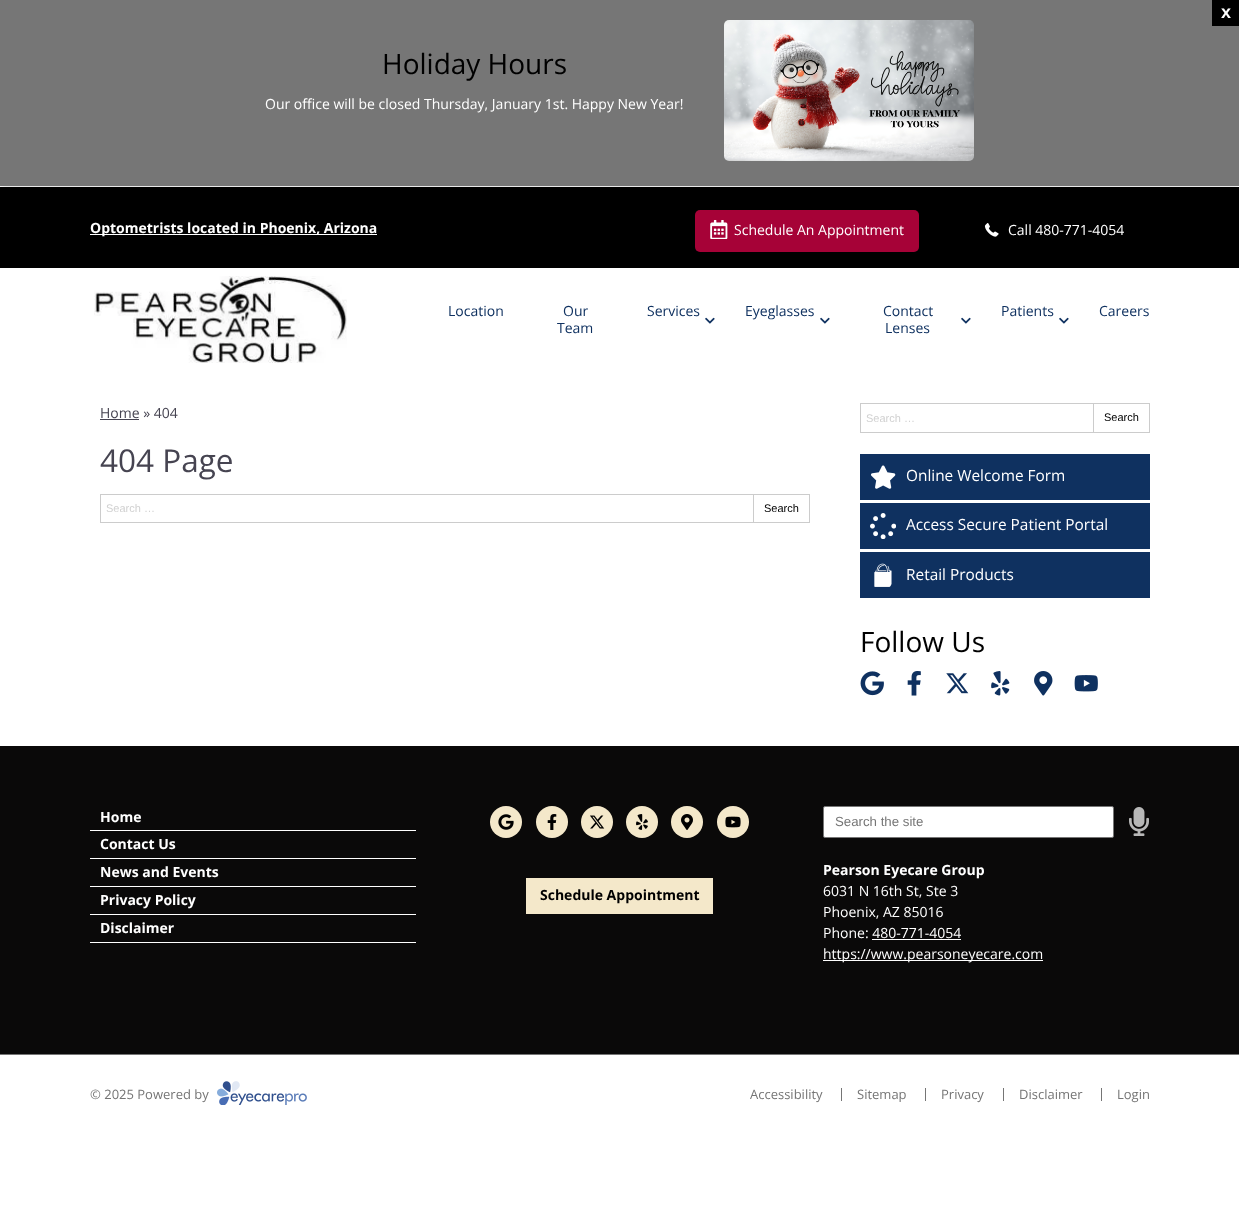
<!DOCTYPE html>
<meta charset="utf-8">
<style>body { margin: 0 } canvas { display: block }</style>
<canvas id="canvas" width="1239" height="1224"></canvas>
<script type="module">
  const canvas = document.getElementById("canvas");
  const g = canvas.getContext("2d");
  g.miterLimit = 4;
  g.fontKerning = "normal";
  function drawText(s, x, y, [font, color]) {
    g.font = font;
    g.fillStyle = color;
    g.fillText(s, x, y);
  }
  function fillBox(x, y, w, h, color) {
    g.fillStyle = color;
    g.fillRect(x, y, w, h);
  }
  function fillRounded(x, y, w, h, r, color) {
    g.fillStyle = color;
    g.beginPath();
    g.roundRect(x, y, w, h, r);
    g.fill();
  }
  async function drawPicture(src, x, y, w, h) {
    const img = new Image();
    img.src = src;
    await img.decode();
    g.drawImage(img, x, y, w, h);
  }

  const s1 = ["bold 18px Liberation Sans", "#FFFFFF"];
  const s2 = ["28px Open Sans", "#000000"];
  const s3 = ["14px Open Sans", "#FFFFFF"];
  const s4 = ["bold 14px Open Sans", "#FFFFFF"];
  const s5 = ["14px Open Sans", "#0F3160"];
  const s6 = ["14px Open Sans", "#464451"];
  const s7 = ["31.5px Open Sans", "#464451"];
  const s8 = ["11px Liberation Sans", "#D1D1D1"];
  const s9 = ["11px Liberation Sans", "#000000"];
  const s10 = ["15.4px Open Sans", "#FFFFFF"];
  const s11 = ["bold 14px Open Sans", "#000000"];
  const s12 = ["13.25px Liberation Sans", "#757575"];
  const s13 = ["13px Open Sans", "#757575"];

  fillBox(0, 0, 1239, 1224, "#FFFFFF");
  fillBox(0, 187, 1239, 81, "#000000");
  g.fillStyle = "rgba(0, 0, 0, 0.2)";
  g.filter = "blur(5px)";
  g.beginPath();
  g.rect(0, 0, 1239, 186);
  g.fill();
  g.filter = "none";
  fillBox(0, 0, 1239, 186, "#767676");
  fillBox(1212, 0, 27, 26, "#000000");
  drawText("x", 1221, 18, s1);
  drawText("Holiday Hours", 382, 74, s2);
  drawText("Our office will be closed Thursday, January 1st. Happy New Year!", 265, 109, s3);
  await drawPicture("pic1.png", 724, 20, 250, 141);
  fillBox(90, 234, 287, 1, "#FFFFFF");
  drawText("Optometrists located in Phoenix, Arizona", 90, 233, s4);
  fillRounded(695, 210, 224, 42, 5, "#A60237");
  await drawPicture("pic2.png", 710, 220, 18, 19);
  drawText("Schedule An Appointment", 734, 235, s3);
  await drawPicture("pic3.png", 984, 223, 15, 14);
  drawText("Call 480-771-4054", 1008, 235, s3);
  await drawPicture("pic4.png", 94, 276, 253, 87);
  drawText("Location", 448, 316, s5);
  drawText("Our", 563, 316, s5);
  drawText("Team", 557, 333, s5);
  drawText("Services", 647, 316, s5);
  await drawPicture("pic5.png", 705, 317, 10, 7);
  drawText("Eyeglasses", 745, 316, s5);
  await drawPicture("pic5.png", 820, 317, 10, 7);
  drawText("Contact", 883, 316, s5);
  drawText("Lenses", 885, 333, s5);
  await drawPicture("pic5.png", 961, 317, 10, 7);
  drawText("Patients", 1001, 316, s5);
  await drawPicture("pic5.png", 1059, 317, 10, 7);
  drawText("Careers", 1099, 316, s5);
  drawText("Home » 404", 100, 418, s6);
  fillBox(100, 419, 39, 1, "#464451");
  drawText("404 Page", 100, 472, s7);
  g.strokeStyle = "#CCCCCC";
  g.strokeRect(100.5, 494.5, 653, 28);
  drawText("Search …", 106, 512, s8);
  g.strokeRect(753.5, 494.5, 56, 28);
  drawText("Search", 764, 512, s9);
  g.strokeRect(860.5, 403.5, 233, 29);
  drawText("Search …", 866, 422, s8);
  g.strokeRect(1093.5, 403.5, 56, 29);
  drawText("Search", 1104, 421, s9);
  fillBox(860, 454, 290, 46, "#0F3160");
  await drawPicture("pic6.png", 871, 465, 25, 24);
  drawText("Online Welcome Form", 906, 481, s10);
  fillBox(860, 503, 290, 46, "#0F3160");
  await drawPicture("pic7.png", 870, 513, 26, 26);
  drawText("Access Secure Patient Portal", 906, 530, s10);
  fillBox(860, 552, 290, 46, "#0F3160");
  await drawPicture("pic8.png", 874, 563, 18, 24);
  drawText("Retail Products", 906, 580, s10);
  drawText("Follow Us", 860, 652, s2);
  await drawPicture("pic9.png", 860, 671, 24, 25);
  await drawPicture("pic10.png", 907, 671, 14, 25);
  await drawPicture("pic11.png", 946, 673, 23, 21);
  await drawPicture("pic12.png", 991, 671, 19, 25);
  await drawPicture("pic13.png", 1034, 671, 19, 25);
  await drawPicture("pic14.png", 1074, 675, 24, 17);
  fillBox(0, 746, 1239, 308, "#0A0909");
  fillBox(90, 830, 326, 1, "#FFFFFF");
  drawText("Home", 100, 822, s4);
  fillBox(90, 858, 326, 1, "#FFFFFF");
  drawText("Contact Us", 100, 849, s4);
  fillBox(90, 886, 326, 1, "#FFFFFF");
  drawText("News and Events", 100, 877, s4);
  fillBox(90, 914, 326, 1, "#FFFFFF");
  drawText("Privacy Policy", 100, 905, s4);
  fillBox(90, 942, 326, 1, "#FFFFFF");
  drawText("Disclaimer", 100, 933, s4);
  g.fillStyle = "#F4E8CA";
  g.beginPath();
  g.arc(506, 822, 16, 0, Math.PI * 2);
  g.fill();
  await drawPicture("pic15.png", 498, 814, 16, 16);
  g.beginPath();
  g.arc(552, 822, 16, 0, Math.PI * 2);
  g.fill();
  await drawPicture("pic16.png", 547, 814, 10, 16);
  g.beginPath();
  g.arc(597, 822, 16, 0, Math.PI * 2);
  g.fill();
  await drawPicture("pic17.png", 590, 815, 15, 14);
  g.beginPath();
  g.arc(642, 822, 16, 0, Math.PI * 2);
  g.fill();
  await drawPicture("pic18.png", 636, 814, 12, 16);
  g.beginPath();
  g.arc(687, 822, 16, 0, Math.PI * 2);
  g.fill();
  await drawPicture("pic19.png", 681, 814, 12, 16);
  g.beginPath();
  g.arc(733, 822, 16, 0, Math.PI * 2);
  g.fill();
  await drawPicture("pic20.png", 725, 816, 16, 12);
  fillBox(526, 878, 187, 36, "#F4E8CA");
  drawText("Schedule Appointment", 540, 900, s11);
  g.fillStyle = "#FFFFFF";
  g.beginPath();
  g.roundRect(823.5, 806.5, 290, 31, 1.5);
  g.fill();
  g.strokeStyle = "#767676";
  g.stroke();
  drawText("Search the site", 835, 826, s12);
  await drawPicture("pic21.png", 1129, 807, 20, 29);
  drawText("Pearson Eyecare Group", 823, 875, s4);
  drawText("6031 N 16th St, Ste 3", 823, 896, s3);
  drawText("Phoenix, AZ 85016", 823, 917, s3);
  drawText("Phone: 480-771-4054", 823, 938, s3);
  fillBox(872, 939, 89, 1, "#FFFFFF");
  fillBox(823, 960, 220, 1, "#FFFFFF");
  drawText("https://www.pearsoneyecare.com", 823, 959, s3);
  fillBox(0, 1054, 1239, 1, "#757575");
  drawText("© 2025 Powered by", 90, 1099, s13);
  await drawPicture("pic22.png", 217, 1081, 90, 24);
  drawText("Accessibility", 750, 1099, s13);
  fillBox(841, 1088, 1, 13, "#757575");
  drawText("Sitemap", 857, 1099, s13);
  fillBox(925, 1088, 1, 13, "#757575");
  drawText("Privacy", 941, 1099, s13);
  fillBox(1003, 1088, 1, 13, "#757575");
  drawText("Disclaimer", 1019, 1099, s13);
  fillBox(1101, 1088, 1, 13, "#757575");
  drawText("Login", 1117, 1099, s13);
</script>
